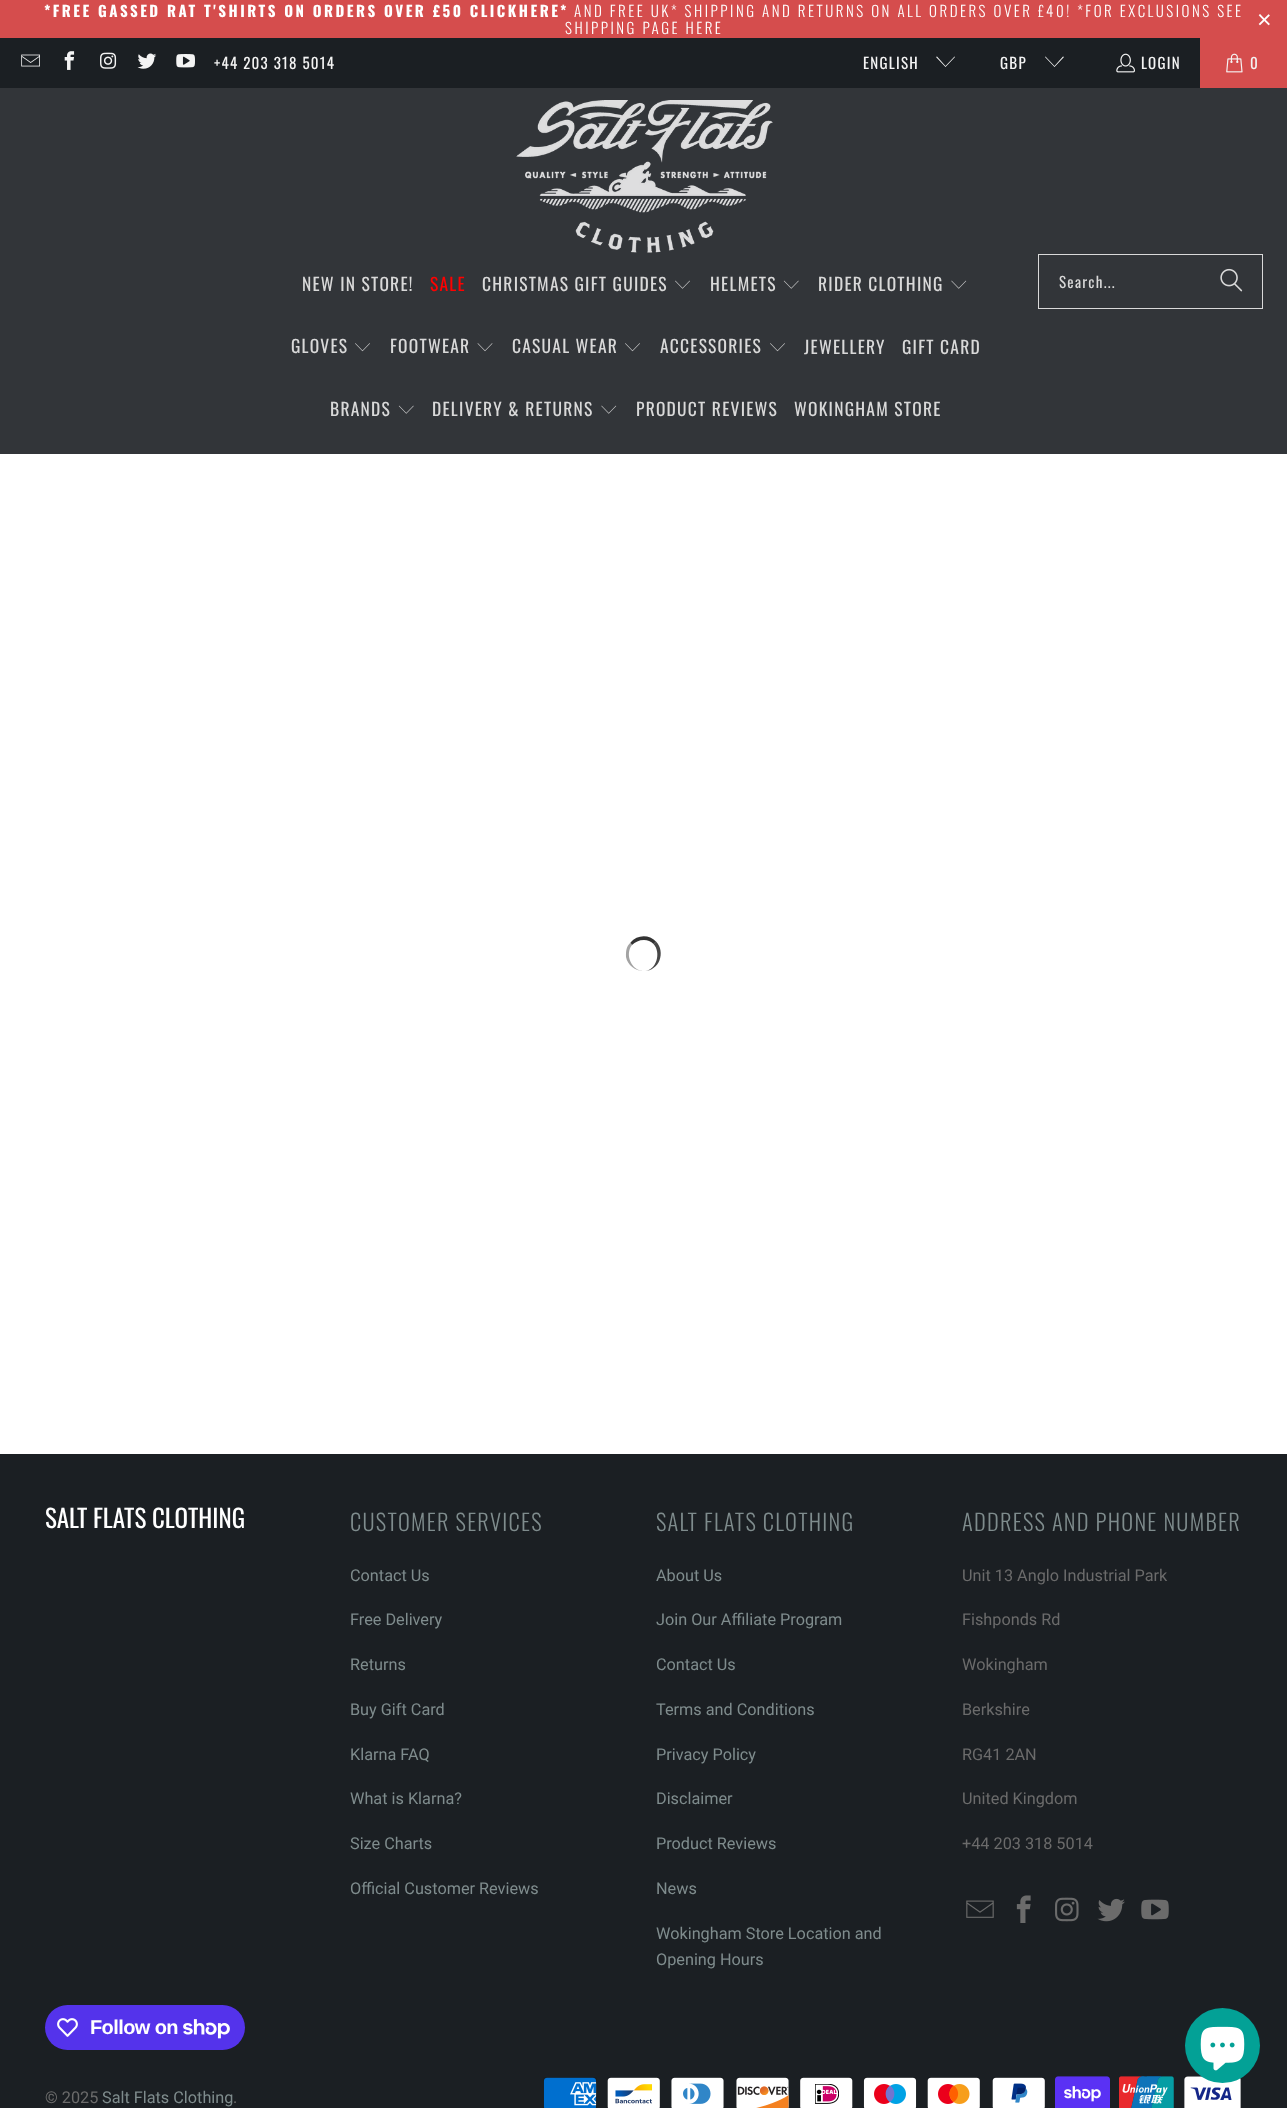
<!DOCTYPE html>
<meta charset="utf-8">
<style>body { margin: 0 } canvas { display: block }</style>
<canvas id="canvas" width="1287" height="2108"></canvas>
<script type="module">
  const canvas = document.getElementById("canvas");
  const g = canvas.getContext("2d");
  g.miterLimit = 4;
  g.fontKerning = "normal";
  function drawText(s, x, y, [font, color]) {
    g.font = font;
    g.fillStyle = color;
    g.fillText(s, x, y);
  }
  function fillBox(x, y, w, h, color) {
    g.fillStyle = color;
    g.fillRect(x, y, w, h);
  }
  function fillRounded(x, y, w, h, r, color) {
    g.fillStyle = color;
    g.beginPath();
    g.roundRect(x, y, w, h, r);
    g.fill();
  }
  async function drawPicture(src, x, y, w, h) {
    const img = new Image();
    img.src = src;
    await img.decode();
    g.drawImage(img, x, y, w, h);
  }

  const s1 = ["bold 15px Oswald", "#FFFFFF"];
  const s2 = ["300 15px Oswald", "#FFFFFF"];
  const s3 = ["25px Liberation Sans", "#FFFFFF"];
  const s4 = ["15px Oswald", "#F4F4F4"];
  const s5 = ["17.5px Oswald", "#D9D9D9"];
  const s6 = ["17.5px Oswald", "#FF0000"];
  const s7 = ["15px Oswald", "#D9D9D9"];
  const s8 = ["25px Oswald", "#FFFFFF"];
  const s9 = ["300 22.5px Oswald", "#7F8C8D"];
  const s10 = ["16.25px Roboto", "#7F8C8D"];
  const s11 = ["16.25px Roboto", "#6B6B6B"];
  const s12 = ["bold 20px Liberation Sans", "#FFFFFF"];

  fillBox(0, 0, 1287, 2108, "#FFFFFF");
  fillBox(0, 0, 1287, 38, "#D54D4D");
  g.letterSpacing = "2.5px";
  drawText("*FREE GASSED RAT T'SHIRTS ON ORDERS OVER £50 CLICKHERE", 44, 17, s1);
  drawText("*", 560, 17, s1);
  drawText("AND FREE UK* SHIPPING AND RETURNS ON ALL ORDERS OVER £40! *FOR EXCLUSIONS SEE", 574, 17, s2);
  drawText("SHIPPING PAGE HERE", 565, 34, s2);
  drawText("×", 1257, 28, s3);
  fillBox(0, 38, 1200, 50, "#1B1F23");
  await drawPicture("pic1.png", 21, 54, 19, 13);
  await drawPicture("pic2.png", 64, 51, 11, 19);
  await drawPicture("pic3.png", 100, 52, 17, 17);
  await drawPicture("pic4.png", 137, 53, 20, 16);
  await drawPicture("pic5.png", 176, 54, 19, 14);
  g.letterSpacing = "1.25px";
  drawText("+44 203 318 5014", 214, 69, s4);
  drawText("ENGLISH", 863, 69, s4);
  g.beginPath();
  g.moveTo(945.5, 67);
  g.lineTo(936, 57);
  g.lineTo(937, 56.5);
  g.lineTo(945.5, 66);
  g.lineTo(954.5, 56.5);
  g.lineTo(955, 57);
  g.closePath();
  g.fill();
  drawText("GBP", 1000, 69, s4);
  g.beginPath();
  g.moveTo(1054.5, 67);
  g.lineTo(1045, 57);
  g.lineTo(1045.5, 56.5);
  g.lineTo(1054.5, 66);
  g.lineTo(1063, 56.5);
  g.lineTo(1064, 57);
  g.closePath();
  g.fill();
  await drawPicture("pic6.png", 1116, 53, 19, 20);
  drawText("LOGIN", 1141, 69, s4);
  fillBox(1200, 38, 87, 50, "#D54D4D");
  await drawPicture("pic7.png", 1226, 53, 17, 20);
  drawText("0", 1250, 69, s4);
  fillBox(0, 88, 1287, 366, "#323539");
  await drawPicture("pic8.png", 516, 100, 257, 153);
  drawText("NEW IN STORE!", 302, 291, s5);
  drawText("SALE", 430, 291, s6);
  drawText("CHRISTMAS GIFT GUIDES", 482, 291, s5);
  await drawPicture("pic9.png", 675, 280, 15, 9);
  drawText("HELMETS", 710, 291, s5);
  await drawPicture("pic10.png", 783, 280, 16, 9);
  drawText("RIDER CLOTHING", 818, 291, s5);
  await drawPicture("pic11.png", 951, 280, 16, 9);
  drawText("GLOVES", 291, 353, s5);
  await drawPicture("pic12.png", 355, 343, 15, 9);
  drawText("FOOTWEAR", 390, 353, s5);
  await drawPicture("pic13.png", 477, 343, 16, 9);
  drawText("CASUAL WEAR", 512, 353, s5);
  await drawPicture("pic12.png", 625, 343, 15, 9);
  drawText("ACCESSORIES", 660, 353, s5);
  await drawPicture("pic12.png", 770, 343, 15, 9);
  drawText("JEWELLERY", 804, 354, s5);
  drawText("GIFT CARD", 902, 354, s5);
  drawText("BRANDS", 330, 416, s5);
  await drawPicture("pic10.png", 398, 405, 16, 9);
  drawText("DELIVERY & RETURNS", 432, 416, s5);
  await drawPicture("pic11.png", 601, 405, 16, 9);
  drawText("PRODUCT REVIEWS", 636, 416, s5);
  drawText("WOKINGHAM STORE", 794, 416, s5);
  g.strokeStyle = "#D9D9D9";
  g.strokeRect(1038.5, 254.5, 224, 54);
  drawText("Search...", 1059, 288, s7);
  await drawPicture("pic14.png", 1220, 268, 23, 24);
  g.fillStyle = "#333333";
  g.beginPath();
  g.moveTo(644, 940);
  g.bezierCurveTo(639, 940, 635, 942, 632, 945);
  g.lineTo(630.5, 942.5);
  g.bezierCurveTo(637, 934.5, 649, 934, 656, 941.5);
  g.lineTo(653.5, 944);
  g.bezierCurveTo(651, 941.5, 647.5, 940, 644, 940);
  g.closePath();
  g.fill();
  g.fillStyle = "rgba(51, 51, 51, 0.9)";
  g.beginPath();
  g.moveTo(656, 941.5);
  g.lineTo(653.5, 944);
  g.bezierCurveTo(661.5, 952.5, 656.5, 971, 644, 971);
  g.bezierCurveTo(659.5, 971, 666, 952, 656, 941.5);
  g.closePath();
  g.fill();
  g.fillStyle = "rgba(51, 51, 51, 0.45)";
  g.beginPath();
  g.moveTo(626, 957);
  g.bezierCurveTo(626, 951, 626, 947, 630.5, 942.5);
  g.lineTo(632, 945);
  g.bezierCurveTo(624.5, 954.5, 631.5, 971, 644, 971);
  g.bezierCurveTo(635, 971, 627.5, 965, 626, 957);
  g.closePath();
  g.fill();
  fillBox(0, 1454, 1287, 654, "#1B1F23");
  g.letterSpacing = "0px";
  drawText("SALT FLATS CLOTHING", 45, 1528, s8);
  g.letterSpacing = "1.25px";
  drawText("CUSTOMER SERVICES", 350, 1531, s9);
  g.letterSpacing = "0px";
  drawText("Contact Us", 350, 1581, s10);
  drawText("Free Delivery", 350, 1625, s10);
  drawText("Returns", 350, 1670, s10);
  drawText("Buy Gift Card", 350, 1715, s10);
  drawText("Klarna FAQ", 350, 1760, s10);
  drawText("What is Klarna?", 350, 1804, s10);
  drawText("Size Charts", 350, 1849, s10);
  drawText("Official Customer Reviews", 350, 1894, s10);
  g.letterSpacing = "1.25px";
  drawText("SALT FLATS CLOTHING", 656, 1531, s9);
  g.letterSpacing = "0px";
  drawText("About Us", 656, 1581, s10);
  drawText("Join Our Affiliate Program", 656, 1625, s10);
  drawText("Contact Us", 656, 1670, s10);
  drawText("Terms and Conditions", 656, 1715, s10);
  drawText("Privacy Policy", 656, 1760, s10);
  drawText("Disclaimer", 656, 1804, s10);
  drawText("Product Reviews", 656, 1849, s10);
  drawText("News", 656, 1894, s10);
  drawText("Wokingham Store Location and", 656, 1939, s10);
  drawText("Opening Hours", 656, 1965, s10);
  g.letterSpacing = "1.25px";
  drawText("ADDRESS AND PHONE NUMBER", 962, 1531, s9);
  g.letterSpacing = "0px";
  drawText("Unit 13 Anglo Industrial Park", 962, 1581, s11);
  drawText("Fishponds Rd", 962, 1625, s11);
  drawText("Wokingham", 962, 1670, s11);
  drawText("Berkshire", 962, 1715, s11);
  drawText("RG41 2AN", 962, 1760, s11);
  drawText("United Kingdom", 962, 1804, s11);
  drawText("+44 203 318 5014", 962, 1849, s11);
  await drawPicture("pic15.png", 966, 1900, 28, 18);
  await drawPicture("pic16.png", 1016, 1895, 15, 28);
  await drawPicture("pic17.png", 1055, 1897, 24, 25);
  await drawPicture("pic18.png", 1097, 1898, 28, 24);
  await drawPicture("pic19.png", 1141, 1899, 28, 21);
  fillRounded(45, 2005, 200, 45, 22.5, "#5433EB");
  await drawPicture("pic20.png", 57, 2018, 21, 19);
  g.letterSpacing = "-0.6px";
  drawText("Follow on", 90, 2034, s12);
  await drawPicture("pic21.png", 183, 2019, 47, 20);
  g.letterSpacing = "0px";
  drawText("© 2025", 45, 2103, s11);
  drawText("Salt Flats Clothing", 102, 2103, s10);
  drawText(".", 233, 2103, s11);
  await drawPicture("pic22.png", 543, 2077, 54, 31);
  await drawPicture("pic23.png", 607, 2077, 53, 31);
  await drawPicture("pic24.png", 671, 2077, 53, 31);
  await drawPicture("pic25.png", 736, 2077, 53, 31);
  await drawPicture("pic26.png", 800, 2077, 53, 31);
  await drawPicture("pic27.png", 863, 2077, 54, 31);
  await drawPicture("pic28.png", 927, 2077, 53, 31);
  await drawPicture("pic29.png", 992, 2077, 53, 31);
  await drawPicture("pic30.png", 1055, 2076, 55, 32);
  await drawPicture("pic31.png", 1119, 2076, 55, 32);
  await drawPicture("pic32.png", 1184, 2076, 57, 32);
  g.fillStyle = "#03A196";
  g.beginPath();
  g.arc(1222.5, 2045.5, 37.5, 0, Math.PI * 2);
  g.fill();
  await drawPicture("pic33.png", 1200, 2026, 45, 45);
</script>
